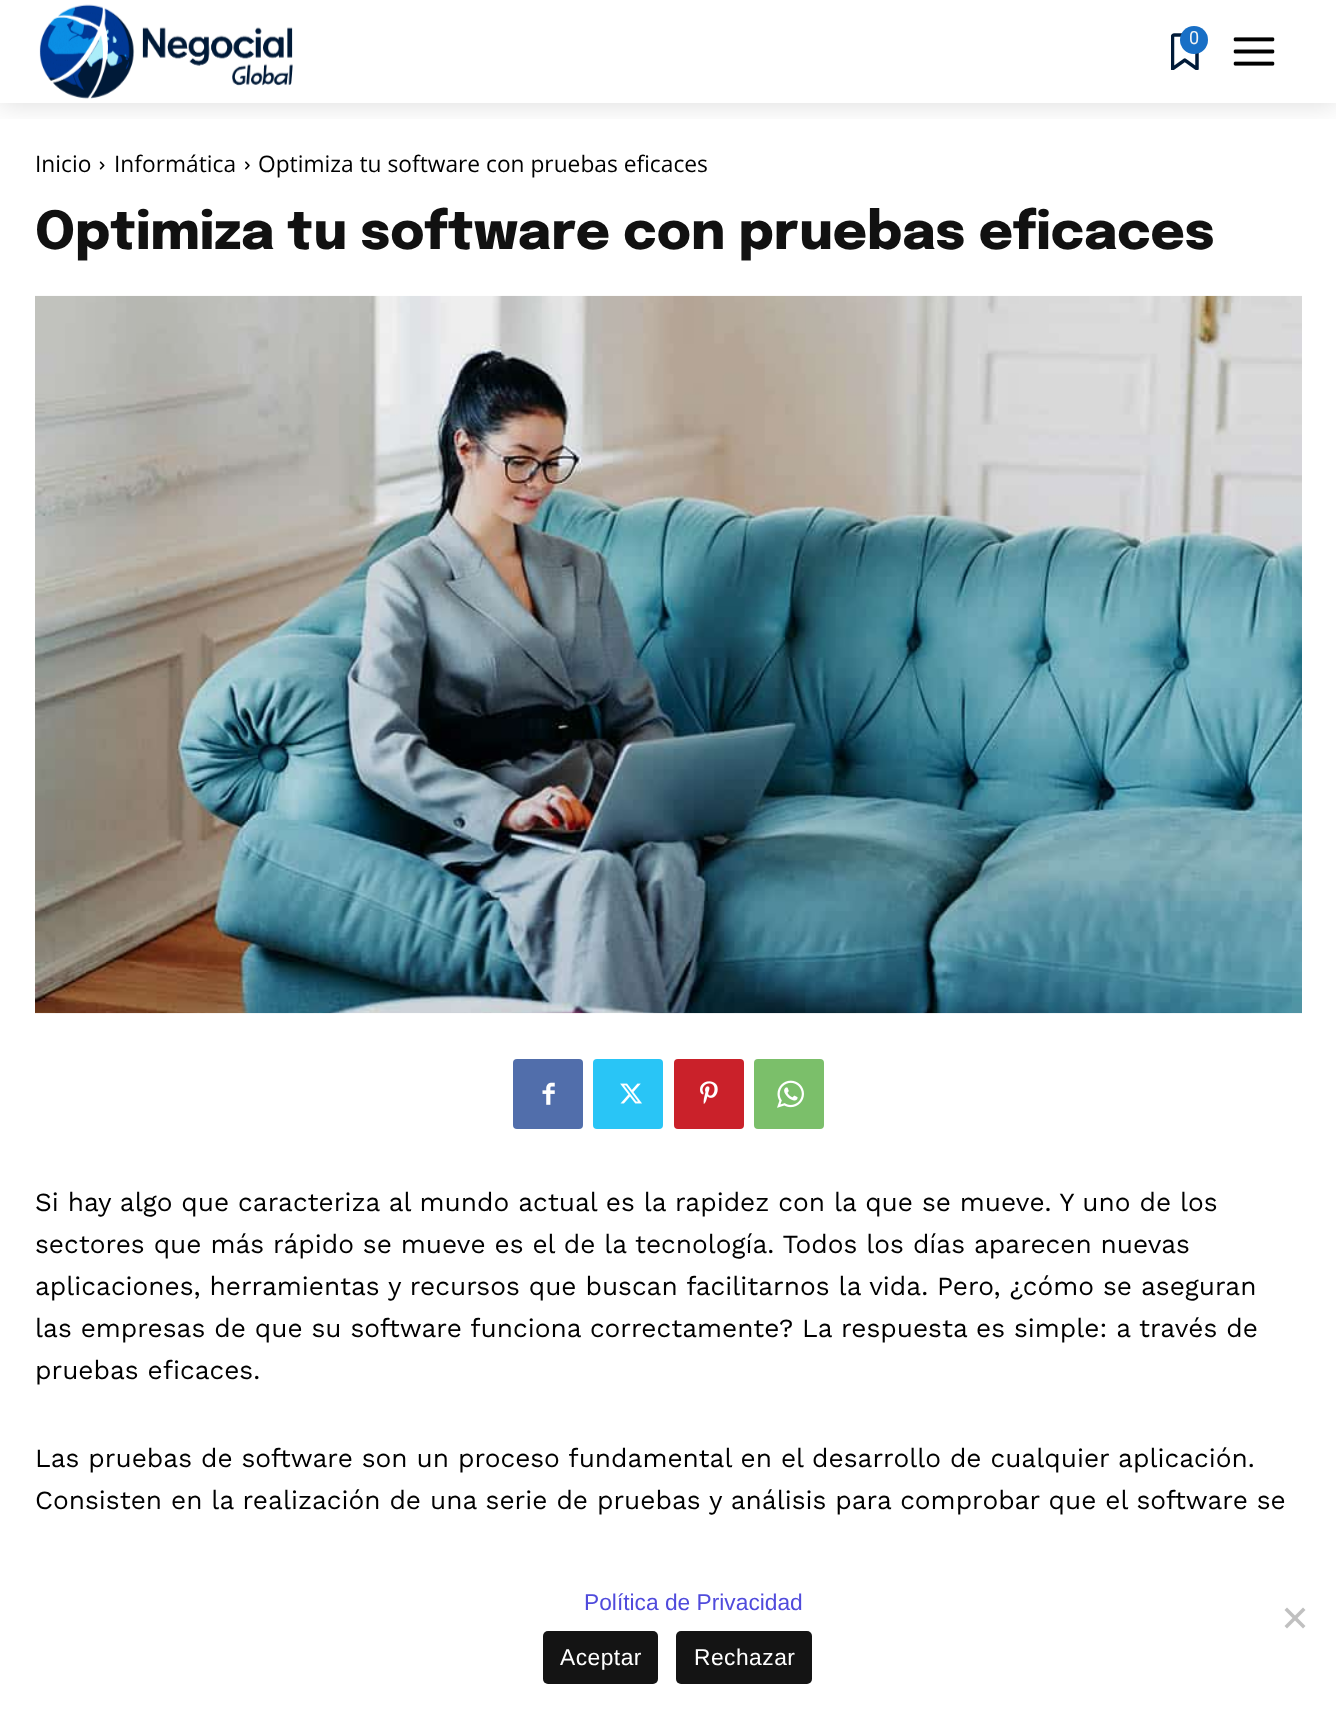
<!DOCTYPE html>
<meta charset="utf-8">
<style>body { margin: 0 } canvas { display: block }</style>
<canvas id="canvas" width="1336" height="1709"></canvas>
<script type="module">
  const canvas = document.getElementById("canvas");
  const g = canvas.getContext("2d");
  g.miterLimit = 4;
  g.fontKerning = "normal";
  function drawText(s, x, y, [font, color]) {
    g.font = font;
    g.fillStyle = color;
    g.fillText(s, x, y);
  }
  function fillBox(x, y, w, h, color) {
    g.fillStyle = color;
    g.fillRect(x, y, w, h);
  }
  function fillRounded(x, y, w, h, r, color) {
    g.fillStyle = color;
    g.beginPath();
    g.roundRect(x, y, w, h, r);
    g.fill();
  }
  async function drawPicture(src, x, y, w, h) {
    const img = new Image();
    img.src = src;
    await img.decode();
    g.drawImage(img, x, y, w, h);
  }

  const s1 = ["18px Roboto", "#F4F4F4"];
  const s2 = ["22.75px Open Sans", "#000000"];
  const s3 = ["800 52.5px Epilogue", "#111111"];
  const s4 = ["26.25px Work Sans", "#000000"];
  const s5 = ["22.75px Liberation Sans", "#504BDC"];
  const s6 = ["22.75px Liberation Sans", "#FFFFFF"];

  fillBox(0, 0, 1336, 1709, "#FFFFFF");
  await drawPicture("pic1.png", 39, 4, 254, 95);
  await drawPicture("pic3.png", 1233, 37, 42, 29);
  g.save();
  g.beginPath();
  g.rect(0, 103, 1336, 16);
  g.clip();
  g.fillStyle = "rgba(0, 0, 0, 0.15)";
  g.filter = "blur(14px)";
  g.beginPath();
  g.rect(0, 0, 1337, 103);
  g.fill();
  g.filter = "none";
  g.restore();
  await drawPicture("pic2.png", 1171, 33, 28, 37);
  g.fillStyle = "#186FC6";
  g.beginPath();
  g.arc(1194, 40, 14, 0, Math.PI * 2);
  g.fill();
  drawText("0", 1189, 44, s1);
  drawText("Inicio", 35, 172, s2);
  await drawPicture("pic4.png", 99, 161, 6, 9);
  drawText("Informática", 114, 172, s2);
  await drawPicture("pic5.png", 245, 161, 5, 9);
  drawText("Optimiza tu software con pruebas eficaces", 258, 172, s2);
  drawText("Optimiza tu software con pruebas eficaces", 35, 249, s3);
  await drawPicture("pic6.png", 35, 295, 1267, 719);
  fillRounded(513, 1059, 70, 70, 4, "#516EAB");
  await drawPicture("pic7.png", 542, 1082, 13, 23);
  fillRounded(593, 1059, 70, 70, 4, "#29C5F6");
  await drawPicture("pic8.png", 620, 1083, 22, 21);
  fillRounded(674, 1059, 70, 70, 4, "#CA212A");
  await drawPicture("pic9.png", 700, 1081, 18, 23);
  fillRounded(754, 1059, 70, 70, 4, "#7BBF6A");
  await drawPicture("pic10.png", 777, 1080, 27, 28);
  drawText("Si hay algo que caracteriza al mundo actual es la rapidez con la que se mueve. Y uno de los", 35, 1211, s4);
  drawText("sectores que más rápido se mueve es el de la tecnología. Todos los días aparecen nuevas", 35, 1253, s4);
  drawText("aplicaciones, herramientas y recursos que buscan facilitarnos la vida. Pero, ¿cómo se aseguran", 35, 1295, s4);
  drawText("las empresas de que su software funciona correctamente? La respuesta es simple: a través de", 35, 1337, s4);
  drawText("pruebas eficaces.", 35, 1379, s4);
  drawText("Las pruebas de software son un proceso fundamental en el desarrollo de cualquier aplicación.", 35, 1467, s4);
  drawText("Consisten en la realización de una serie de pruebas y análisis para comprobar que el software se", 35, 1509, s4);
  drawText("Política de Privacidad", 584, 1610, s5);
  g.fillStyle = "#C0C0C0";
  g.beginPath();
  g.moveTo(1303, 1607.5);
  g.lineTo(1305.5, 1610);
  g.lineTo(1287, 1628.5);
  g.lineTo(1284.5, 1626);
  g.closePath();
  g.fill();
  g.beginPath();
  g.moveTo(1284.5, 1610);
  g.lineTo(1287, 1607.5);
  g.lineTo(1305.5, 1626);
  g.lineTo(1303, 1628.5);
  g.closePath();
  g.fill();
  fillRounded(543, 1631, 115, 53, 5, "#141414");
  g.letterSpacing = "0.5px";
  drawText("Aceptar", 560, 1665, s6);
  fillRounded(676, 1631, 136, 53, 5, "#141414");
  drawText("Rechazar", 694, 1665, s6);
</script>
